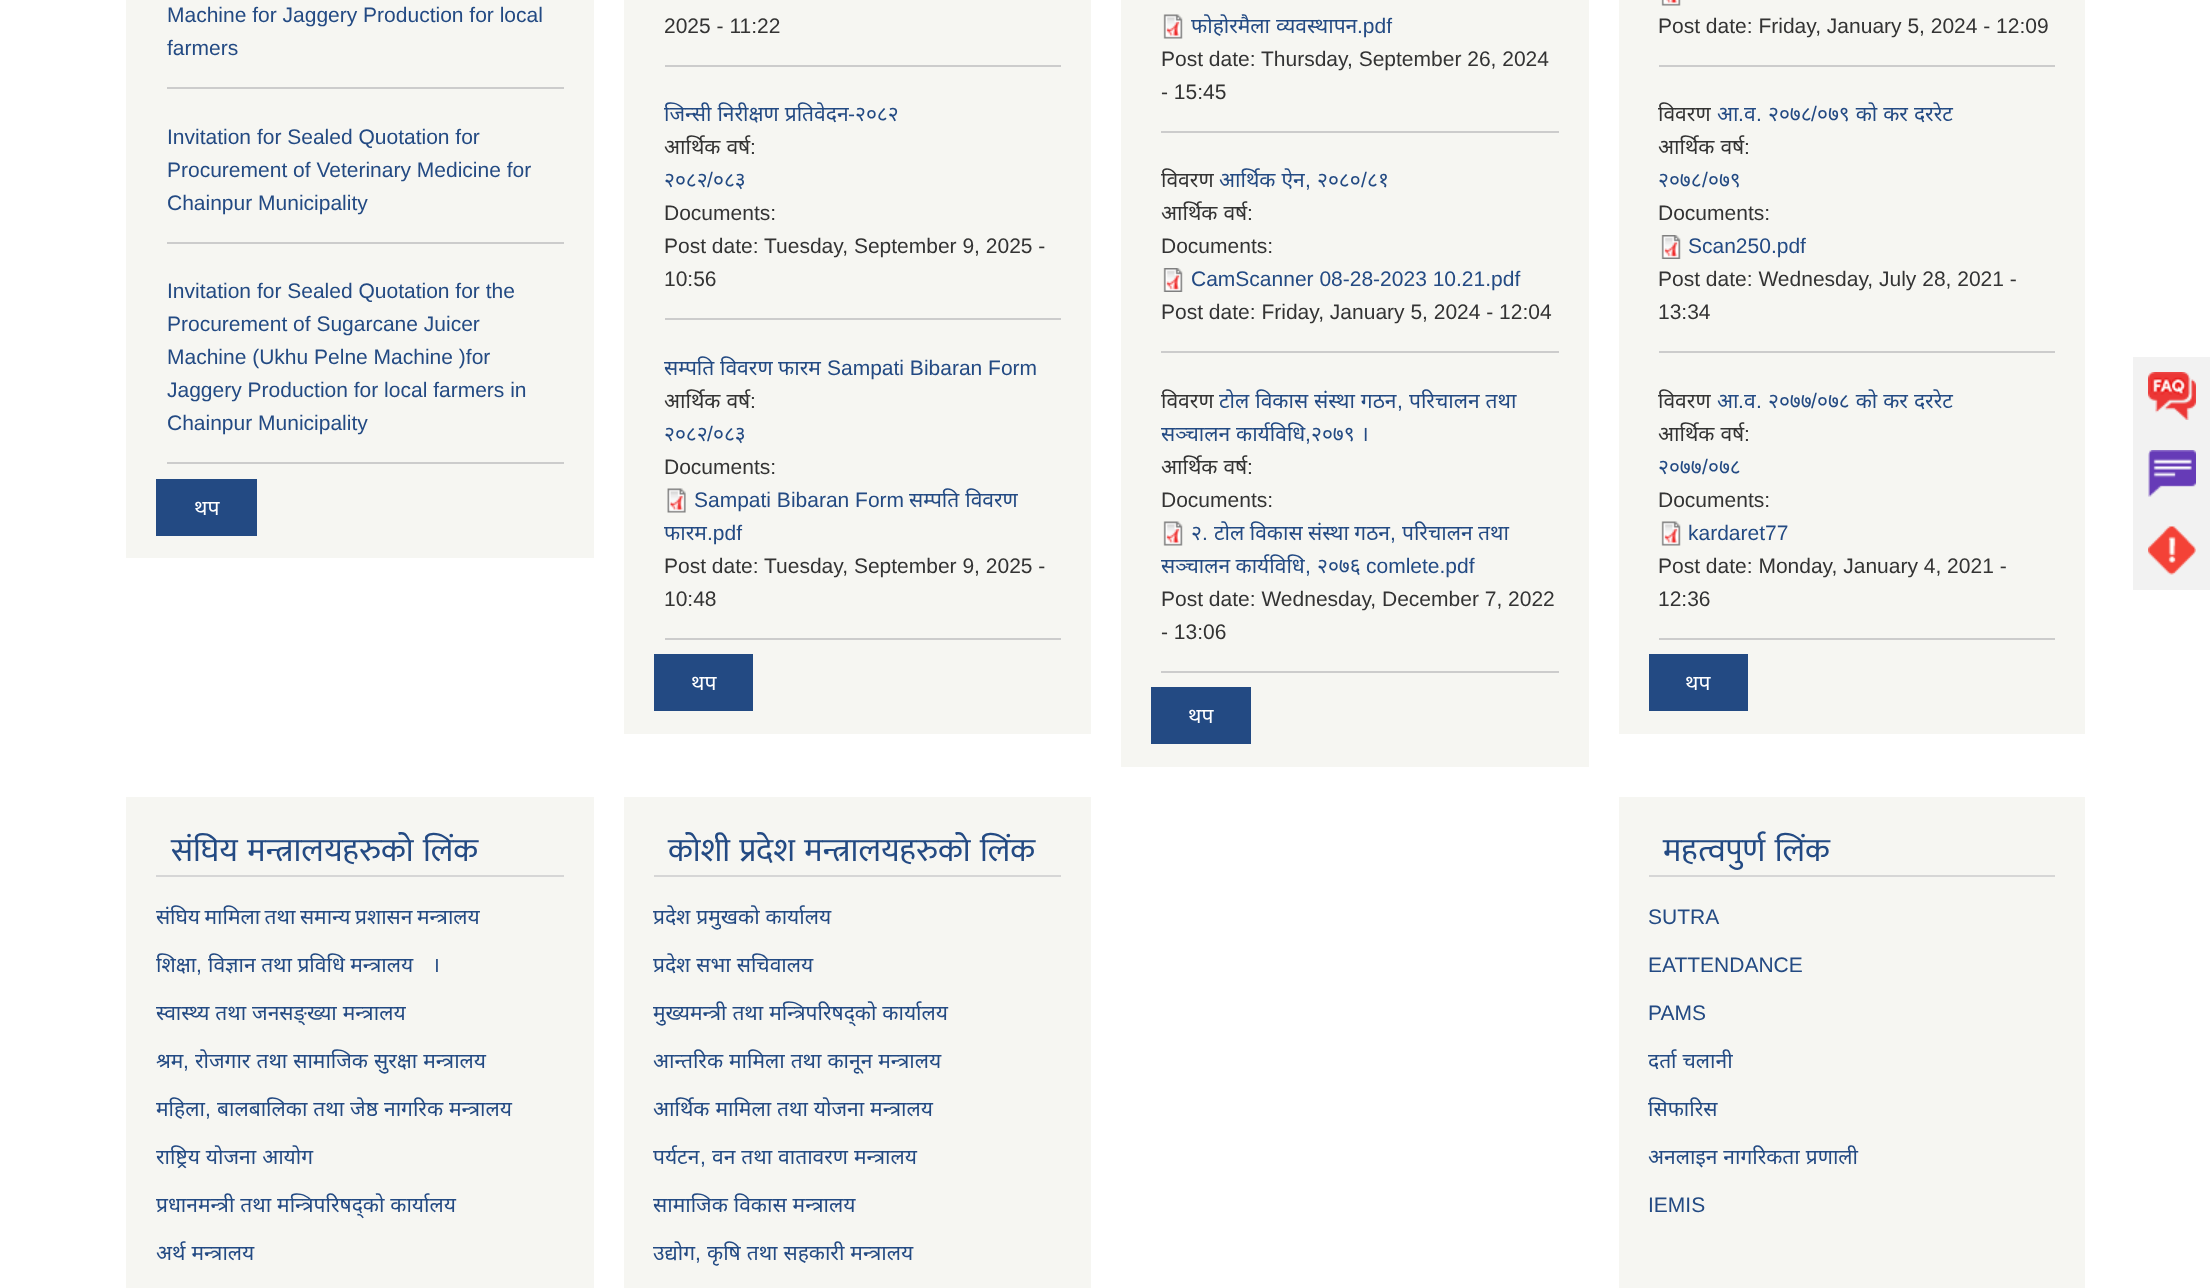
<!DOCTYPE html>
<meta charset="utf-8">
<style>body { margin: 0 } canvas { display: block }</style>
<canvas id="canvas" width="2210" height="1288"></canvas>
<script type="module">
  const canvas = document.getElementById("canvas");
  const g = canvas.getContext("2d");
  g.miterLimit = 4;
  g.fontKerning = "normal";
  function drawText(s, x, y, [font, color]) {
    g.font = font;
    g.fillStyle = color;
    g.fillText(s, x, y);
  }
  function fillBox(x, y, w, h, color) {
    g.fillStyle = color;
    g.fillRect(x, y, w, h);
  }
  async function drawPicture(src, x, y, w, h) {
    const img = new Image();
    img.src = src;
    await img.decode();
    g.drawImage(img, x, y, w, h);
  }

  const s1 = ["21px Liberation Sans", "#234A83"];
  const s2 = ["21px Noto Sans", "#FFFFFF"];
  const s3 = ["21px Liberation Sans", "#333333"];
  const s4 = ["21px Noto Sans", "#234A83"];
  const s5 = ["21px Noto Sans", "#333333"];
  const s6 = ["33px Mukta", "#234A83"];

  fillBox(0, 0, 2210, 1288, "#FFFFFF");
  fillBox(126, 0, 468, 558, "#F6F6F2");
  fillBox(167, 87, 397, 2, "#CCCCCC");
  drawText("Machine for Jaggery Production for local", 167, 22, s1);
  drawText("farmers", 167, 55, s1);
  fillBox(167, 242, 397, 2, "#CCCCCC");
  drawText("Invitation for Sealed Quotation for", 167, 144, s1);
  drawText("Procurement of Veterinary Medicine for", 167, 177, s1);
  drawText("Chainpur Municipality", 167, 210, s1);
  fillBox(167, 462, 397, 2, "#CCCCCC");
  drawText("Invitation for Sealed Quotation for the", 167, 298, s1);
  drawText("Procurement of Sugarcane Juicer", 167, 331, s1);
  drawText("Machine (Ukhu Pelne Machine )for", 167, 364, s1);
  drawText("Jaggery Production for local farmers in", 167, 397, s1);
  drawText("Chainpur Municipality", 167, 430, s1);
  fillBox(156, 479, 101, 57, "#234A83");
  drawText("थप", 194, 515, s2);
  fillBox(624, 0, 467, 734, "#F6F6F2");
  fillBox(665, 65, 396, 2, "#CCCCCC");
  drawText("2025 - 11:22", 664, 33, s3);
  fillBox(665, 318, 396, 2, "#CCCCCC");
  g.wordSpacing = "0.5px";
  drawText("जिन्सी निरीक्षण प्रतिवेदन", 664, 121, s4);
  g.wordSpacing = "0px";
  drawText("-", 848, 121, s1);
  drawText("२०८२", 855, 121, s4);
  g.wordSpacing = "0.5px";
  drawText("आर्थिक वर्ष", 664, 154, s5);
  g.wordSpacing = "0px";
  drawText(":", 750, 154, s3);
  drawText("२०८२", 664, 187, s4);
  drawText("/", 707, 187, s1);
  drawText("०८३", 713, 187, s4);
  drawText("Documents:", 664, 220, s3);
  drawText("Post date:", 664, 253, s3);
  drawText("Tuesday, September 9, 2025 -", 764, 253, s3);
  drawText("10:56", 664, 286, s3);
  fillBox(665, 638, 396, 2, "#CCCCCC");
  drawText("सम्पति", 664, 375, s4);
  drawText("विवरण", 720, 375, s4);
  drawText("फारम", 778, 375, s4);
  drawText("Sampati Bibaran Form", 827, 375, s1);
  g.wordSpacing = "0.5px";
  drawText("आर्थिक वर्ष", 664, 408, s5);
  g.wordSpacing = "0px";
  drawText(":", 750, 408, s3);
  drawText("२०८२", 664, 441, s4);
  drawText("/", 707, 441, s1);
  drawText("०८३", 713, 441, s4);
  drawText("Documents:", 664, 474, s3);
  await drawPicture("pic1.png", 667, 488, 19, 25);
  drawText("Sampati Bibaran Form", 694, 507, s1);
  g.wordSpacing = "0.5px";
  drawText("सम्पति विवरण", 909, 507, s4);
  g.wordSpacing = "0px";
  drawText("फारम", 664, 540, s4);
  drawText(".pdf", 707, 540, s1);
  drawText("Post date:", 664, 573, s3);
  drawText("Tuesday, September 9, 2025 -", 764, 573, s3);
  drawText("10:48", 664, 606, s3);
  fillBox(654, 654, 99, 57, "#234A83");
  drawText("थप", 691, 690, s2);
  fillBox(1121, 0, 468, 767, "#F6F6F2");
  fillBox(1161, 131, 398, 2, "#CCCCCC");
  await drawPicture("pic2.png", 1163, 14, 20, 25);
  g.wordSpacing = "0.5px";
  drawText("फोहोरमैला व्यवस्थापन", 1191, 33, s4);
  g.wordSpacing = "0px";
  drawText(".pdf", 1357, 33, s1);
  drawText("Post date:", 1161, 66, s3);
  drawText("Thursday, September 26, 2024", 1261, 66, s3);
  drawText("- 15:45", 1161, 99, s3);
  fillBox(1161, 351, 398, 2, "#CCCCCC");
  drawText("विवरण", 1161, 187, s5);
  g.wordSpacing = "0.5px";
  drawText("आर्थिक ऐन", 1219, 187, s4);
  g.wordSpacing = "0px";
  drawText(",", 1305, 187, s1);
  drawText("२०८०", 1317, 187, s4);
  drawText("/", 1361, 187, s1);
  drawText("८१", 1367, 187, s4);
  g.wordSpacing = "0.5px";
  drawText("आर्थिक वर्ष", 1161, 220, s5);
  g.wordSpacing = "0px";
  drawText(":", 1247, 220, s3);
  drawText("Documents:", 1161, 253, s3);
  await drawPicture("pic3.png", 1163, 268, 20, 24);
  drawText("CamScanner 08-28-2023 10.21.pdf", 1191, 286, s1);
  drawText("Post date: Friday, January 5, 2024 - 12:04", 1161, 319, s3);
  fillBox(1161, 671, 398, 2, "#CCCCCC");
  drawText("विवरण", 1161, 408, s5);
  g.wordSpacing = "0.5px";
  drawText("टोल विकास संस्था गठन", 1219, 408, s4);
  g.wordSpacing = "0px";
  drawText(",", 1397, 408, s1);
  g.wordSpacing = "0.5px";
  drawText("परिचालन तथा", 1409, 408, s4);
  drawText("सञ्चालन कार्यविधि", 1161, 441, s4);
  g.wordSpacing = "0px";
  drawText(",", 1305, 441, s1);
  g.wordSpacing = "0.5px";
  drawText("२०७९ ।", 1311, 441, s4);
  drawText("आर्थिक वर्ष", 1161, 474, s5);
  g.wordSpacing = "0px";
  drawText(":", 1247, 474, s3);
  drawText("Documents:", 1161, 507, s3);
  await drawPicture("pic2.png", 1163, 521, 20, 25);
  drawText("२", 1191, 540, s4);
  drawText(".", 1202, 540, s1);
  drawText("टोल विकास संस्था गठन", 1214, 540, s4);
  drawText(",", 1390, 540, s1);
  drawText("परिचालन तथा", 1402, 540, s4);
  drawText("सञ्चालन कार्यविधि", 1161, 573, s4);
  drawText(",", 1305, 573, s1);
  drawText("२०७६", 1317, 573, s4);
  drawText("comlete.pdf", 1366, 573, s1);
  drawText("Post date: Wednesday, December 7, 2022", 1161, 606, s3);
  drawText("- 13:06", 1161, 639, s3);
  fillBox(1151, 687, 100, 57, "#234A83");
  drawText("थप", 1188, 723, s2);
  fillBox(1619, 0, 466, 734, "#F6F6F2");
  fillBox(1659, 65, 396, 2, "#CCCCCC");
  await drawPicture("pic4.png", 1661, 0, 20, 6);
  drawText("Post date: Friday, January 5, 2024 - 12:09", 1658, 33, s3);
  fillBox(1659, 351, 396, 2, "#CCCCCC");
  drawText("विवरण", 1658, 121, s5);
  drawText("आ", 1717, 121, s4);
  drawText(".", 1738, 121, s1);
  drawText("व", 1744, 121, s4);
  drawText(".", 1756, 121, s1);
  drawText("२०७८", 1768, 121, s4);
  drawText("/", 1811, 121, s1);
  g.wordSpacing = "0.5px";
  drawText("०७९ को कर दररेट", 1817, 121, s4);
  drawText("आर्थिक वर्ष", 1658, 154, s5);
  g.wordSpacing = "0px";
  drawText(":", 1744, 154, s3);
  drawText("२०७८", 1658, 187, s4);
  drawText("/", 1702, 187, s1);
  drawText("०७९", 1708, 187, s4);
  drawText("Documents:", 1658, 220, s3);
  await drawPicture("pic5.png", 1661, 235, 20, 24);
  drawText("Scan250.pdf", 1688, 253, s1);
  drawText("Post date: Wednesday, July 28, 2021 -", 1658, 286, s3);
  drawText("13:34", 1658, 319, s3);
  fillBox(1659, 638, 396, 2, "#CCCCCC");
  drawText("विवरण", 1658, 408, s5);
  drawText("आ", 1717, 408, s4);
  drawText(".", 1738, 408, s1);
  drawText("व", 1744, 408, s4);
  drawText(".", 1756, 408, s1);
  drawText("२०७७", 1768, 408, s4);
  drawText("/", 1811, 408, s1);
  g.wordSpacing = "0.5px";
  drawText("०७८ को कर दररेट", 1817, 408, s4);
  drawText("आर्थिक वर्ष", 1658, 441, s5);
  g.wordSpacing = "0px";
  drawText(":", 1744, 441, s3);
  drawText("२०७७", 1658, 474, s4);
  drawText("/", 1702, 474, s1);
  drawText("०७८", 1708, 474, s4);
  drawText("Documents:", 1658, 507, s3);
  await drawPicture("pic6.png", 1661, 521, 20, 25);
  drawText("kardaret77", 1688, 540, s1);
  drawText("Post date: Monday, January 4, 2021 -", 1658, 573, s3);
  drawText("12:36", 1658, 606, s3);
  fillBox(1649, 654, 99, 57, "#234A83");
  drawText("थप", 1685, 690, s2);
  fillBox(126, 797, 468, 491, "#F6F6F2");
  fillBox(156, 875, 408, 2, "#D6D6D6");
  g.wordSpacing = "2px";
  drawText("स‌ंघिय मन्त्रालयहरुको लिंक", 171, 861, s6);
  g.wordSpacing = "0px";
  drawText("स", 156, 924, s4);
  g.wordSpacing = "-1px";
  drawText("ंघिय मामिला तथा समान्य प्रशासन मन्त्रालय", 170, 924, s4);
  g.wordSpacing = "0px";
  drawText("शिक्षा", 156, 972, s4);
  drawText(",", 196, 972, s1);
  drawText("विज्ञान तथा प्रविधि मन्त्रालय", 208, 972, s4);
  drawText("।", 432, 972, s4);
  g.wordSpacing = "0.5px";
  drawText("स्वास्थ्य तथा जनसङ्ख्या मन्त्रालय", 156, 1020, s4);
  g.wordSpacing = "0px";
  drawText("श्रम", 156, 1068, s4);
  drawText(",", 183, 1068, s1);
  g.wordSpacing = "0.5px";
  drawText("रोजगार तथा सामाजिक सुरक्षा मन्त्रालय", 195, 1068, s4);
  g.wordSpacing = "0px";
  drawText("महिला", 156, 1116, s4);
  drawText(",", 205, 1116, s1);
  g.wordSpacing = "0.5px";
  drawText("बालबालिका तथा जेष्ठ नागरिक मन्त्रालय", 217, 1116, s4);
  drawText("राष्ट्रिय योजना आयोग", 156, 1164, s4);
  drawText("प्रधानमन्त्री तथा मन्त्रिपरिषद्को कार्यालय", 156, 1212, s4);
  drawText("अर्थ मन्त्रालय", 156, 1260, s4);
  fillBox(624, 797, 467, 491, "#F6F6F2");
  fillBox(654, 875, 407, 2, "#D6D6D6");
  g.wordSpacing = "2px";
  drawText("कोशी प्रदेश मन्त्रालयहरुको लिंक", 668, 861, s6);
  g.wordSpacing = "0.5px";
  drawText("प्रदेश प्रमुखको कार्यालय", 653, 924, s4);
  drawText("प्रदेश सभा सचिवालय", 653, 972, s4);
  drawText("मुख्यमन्त्री तथा मन्त्रिपरिषद्को कार्यालय", 653, 1020, s4);
  drawText("आन्तरिक मामिला तथा कानून मन्त्रालय", 653, 1068, s4);
  drawText("आर्थिक मामिला तथा योजना मन्त्रालय", 653, 1116, s4);
  g.wordSpacing = "0px";
  drawText("पर्यटन", 653, 1164, s4);
  drawText(",", 700, 1164, s1);
  g.wordSpacing = "0.5px";
  drawText("वन तथा वातावरण मन्त्रालय", 712, 1164, s4);
  drawText("सामाजिक विकास मन्त्रालय", 653, 1212, s4);
  g.wordSpacing = "0px";
  drawText("उद्योग", 653, 1260, s4);
  drawText(",", 695, 1260, s1);
  g.wordSpacing = "0.5px";
  drawText("कृषि तथा सहकारी मन्त्रालय", 707, 1260, s4);
  fillBox(1619, 797, 466, 491, "#F6F6F2");
  fillBox(1649, 875, 406, 2, "#D6D6D6");
  g.wordSpacing = "2px";
  drawText("महत्वपुर्ण लिंक", 1663, 861, s6);
  g.wordSpacing = "0px";
  drawText("SUTRA", 1648, 924, s1);
  drawText("EATTENDANCE", 1648, 972, s1);
  drawText("PAMS", 1648, 1020, s1);
  g.wordSpacing = "0.5px";
  drawText("दर्ता चलानी", 1648, 1068, s4);
  g.wordSpacing = "0px";
  drawText("सिफारिस", 1648, 1116, s4);
  g.wordSpacing = "0.5px";
  drawText("अनलाइन नागरिकता प्रणाली", 1648, 1164, s4);
  g.wordSpacing = "0px";
  drawText("IEMIS", 1648, 1212, s1);
  fillBox(2133, 357, 77, 233, "#F2F2F2");
  await drawPicture("pic7.png", 2148, 372, 48, 48);
  await drawPicture("pic8.png", 2148, 450, 48, 47);
  await drawPicture("pic9.png", 2148, 526, 48, 49);
</script>
